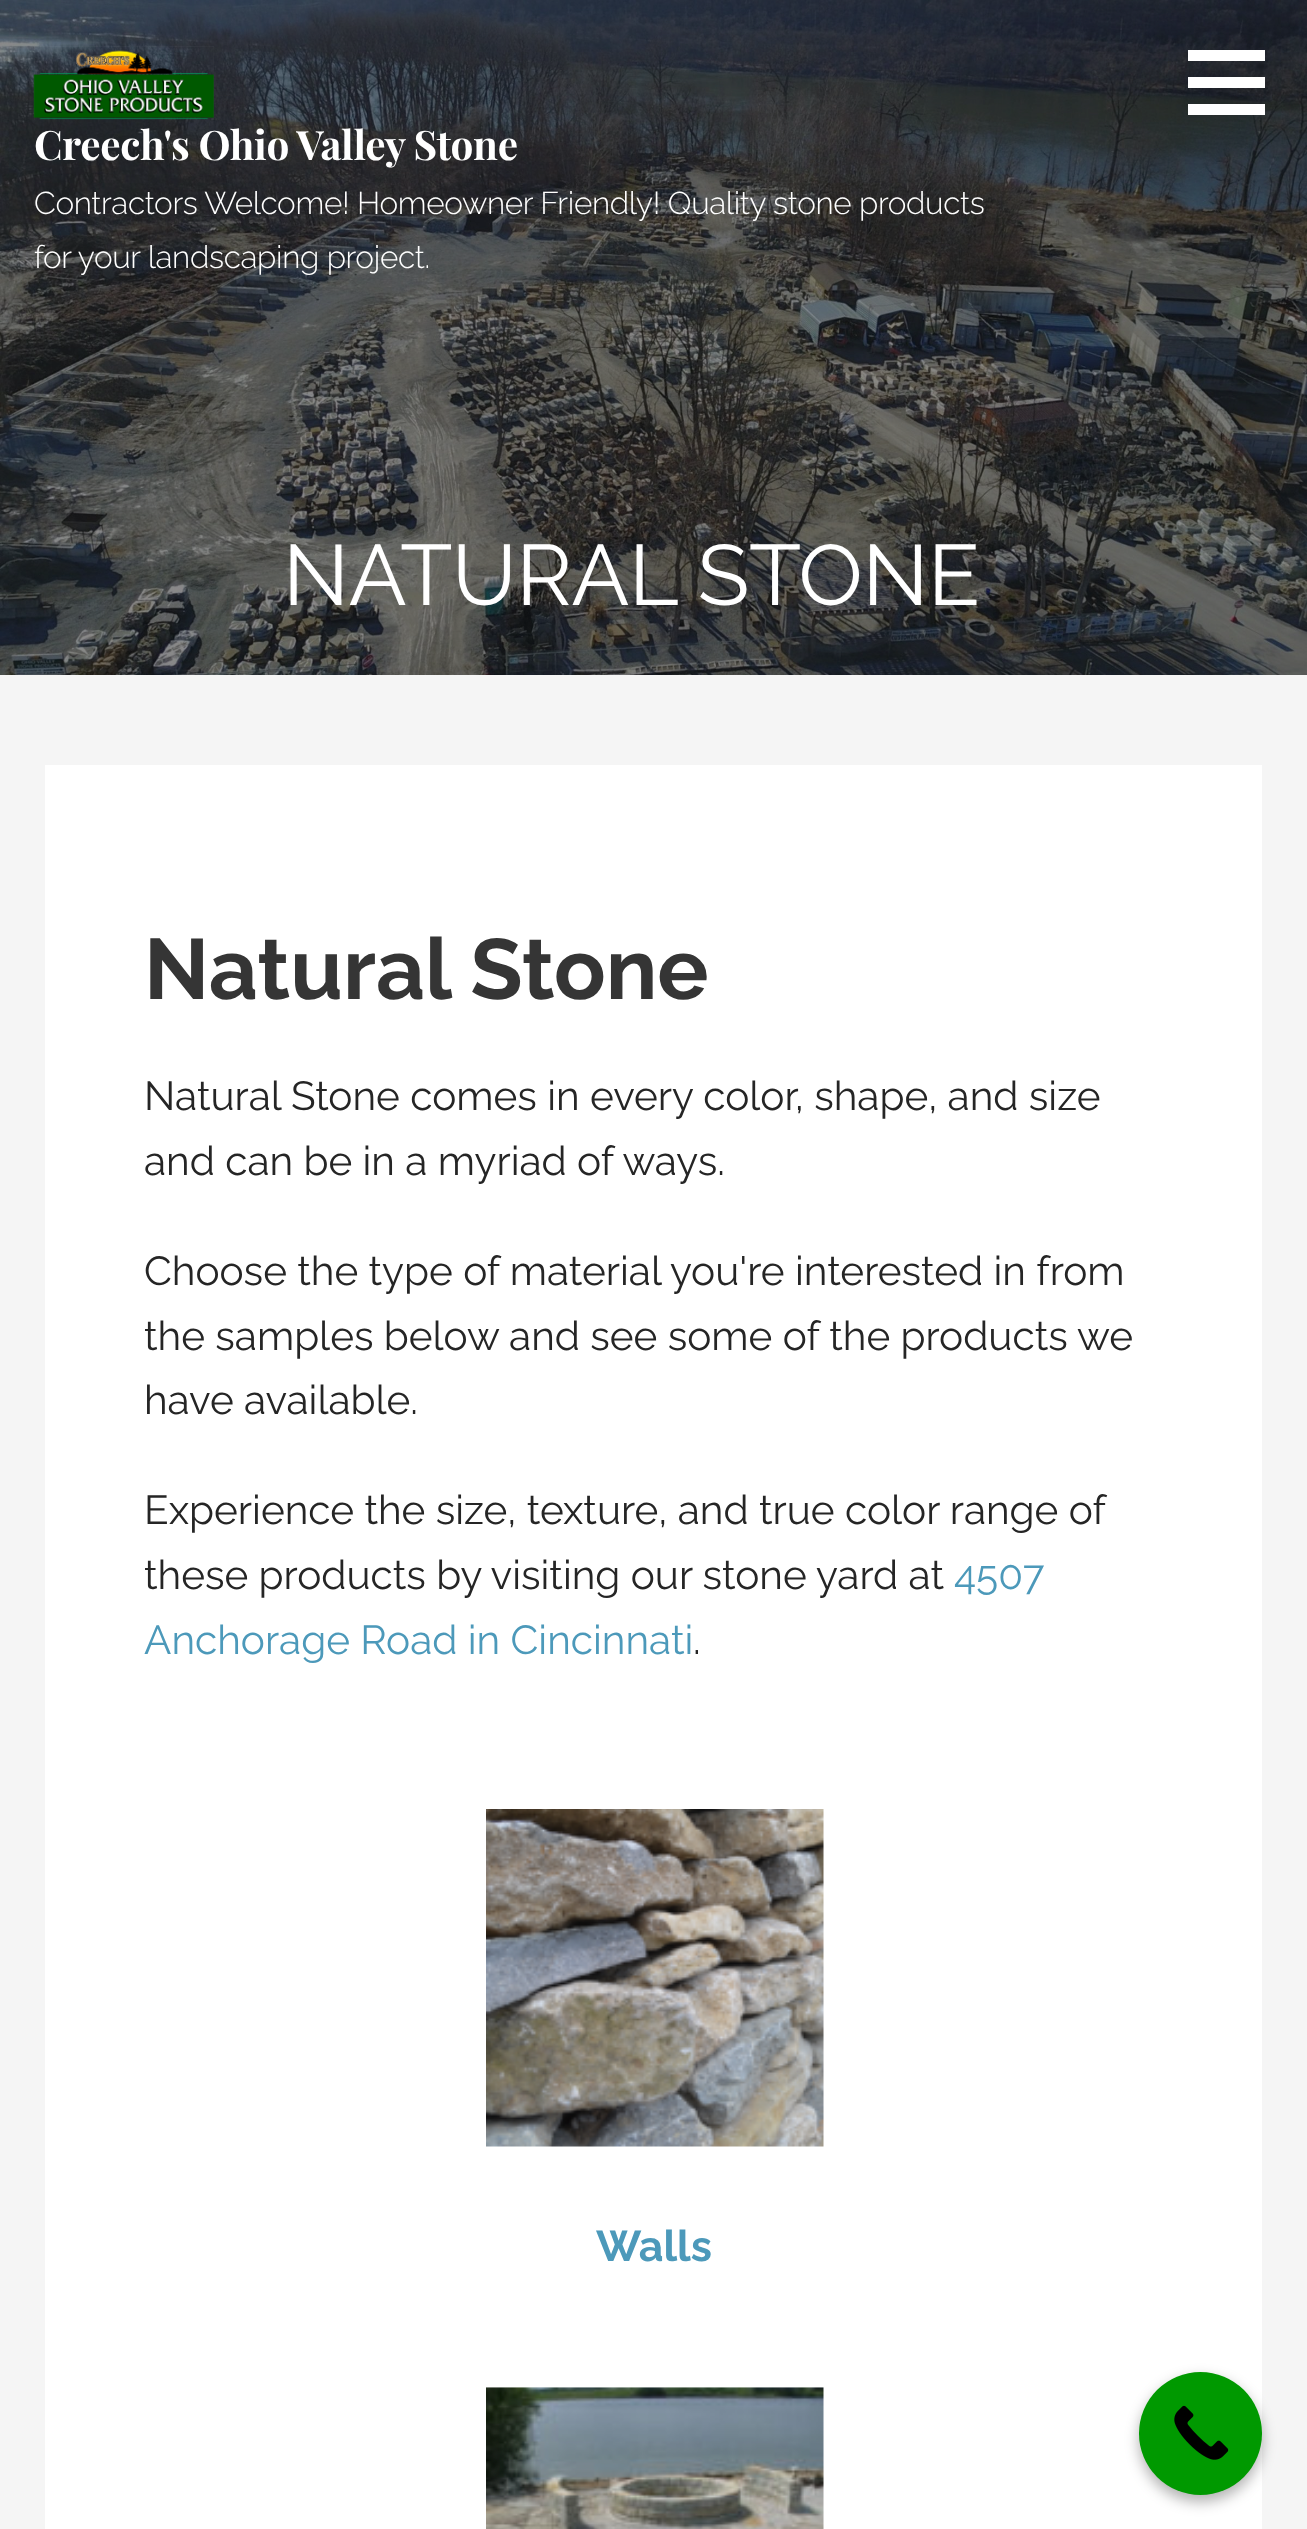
<!DOCTYPE html>
<meta charset="utf-8">
<style>body { margin: 0 } canvas { display: block }</style>
<canvas id="canvas" width="1307" height="2529"></canvas>
<script type="module">
  const canvas = document.getElementById("canvas");
  const g = canvas.getContext("2d");
  g.miterLimit = 4;
  g.fontKerning = "normal";
  function drawText(s, x, y, [font, color]) {
    g.font = font;
    g.fillStyle = color;
    g.fillText(s, x, y);
  }
  function fillBox(x, y, w, h, color) {
    g.fillStyle = color;
    g.fillRect(x, y, w, h);
  }
  async function drawPicture(src, x, y, w, h) {
    const img = new Image();
    img.src = src;
    await img.decode();
    g.drawImage(img, x, y, w, h);
  }

  const s1 = ["bold 40.5px Playfair Display", "#FFFFFF"];
  const s2 = ["300 31.5px Raleway", "#FFFFFF"];
  const s3 = ["85.5px Raleway", "#FFFFFF"];
  const s4 = ["bold 85.5px Raleway", "#353535"];
  const s5 = ["40.5px Raleway", "#252525"];
  const s6 = ["40.5px Raleway", "#4C99BA"];
  const s7 = ["bold 43px Raleway", "#4C99BA"];

  fillBox(0, 0, 1307, 2529, "#F5F5F5");
  await drawPicture("pic1.png", 0, 0, 1307, 675);
  fillBox(1188, 50, 77, 11, "#FFFFFF");
  fillBox(1188, 77, 77, 11, "#FFFFFF");
  fillBox(1188, 104, 77, 11, "#FFFFFF");
  await drawPicture("pic2.png", 33, 46, 181, 74);
  g.letterSpacing = "-0.35px";
  drawText("Creech's Ohio Valley Stone", 34, 160, s1);
  drawText("Contractors Welcome! Homeowner Friendly! Quality stone products", 34, 214, s2);
  drawText("for your landscaping project.", 34, 268, s2);
  drawText("NATURAL STONE", 283, 605, s3);
  fillBox(45, 765, 1217, 1764, "#FFFFFF");
  g.letterSpacing = "0px";
  drawText("Natural Stone", 144, 999, s4);
  drawText("Natural Stone comes in every color, shape, and size", 144, 1110, s5);
  drawText("and can be in a myriad of ways.", 144, 1175, s5);
  drawText("Choose the type of material you're interested in from", 144, 1285, s5);
  drawText("the samples below and see some of the products we", 144, 1350, s5);
  drawText("have available.", 144, 1414, s5);
  drawText("Experience the size, texture, and true color range of", 144, 1524, s5);
  drawText("these products by visiting our stone yard at", 144, 1589, s5);
  drawText("4507", 954, 1589, s6);
  drawText("Anchorage Road in Cincinnati", 144, 1654, s6);
  drawText(".", 693, 1654, s5);
  await drawPicture("pic3.png", 486, 1809, 338, 338);
  drawText("Walls", 596, 2261, s7);
  await drawPicture("pic4.png", 486, 2387, 338, 142);
  g.fillStyle = "rgba(0, 0, 0, 0.3)";
  g.filter = "blur(7px)";
  g.beginPath();
  g.roundRect(1139, 2378, 123, 124, 61.5);
  g.fill();
  g.filter = "none";
  g.fillStyle = "#009900";
  g.beginPath();
  g.arc(1200.5, 2433.5, 61.5, 0, Math.PI * 2);
  g.fill();
  await drawPicture("pic5.png", 1174, 2405, 55, 55);
</script>
